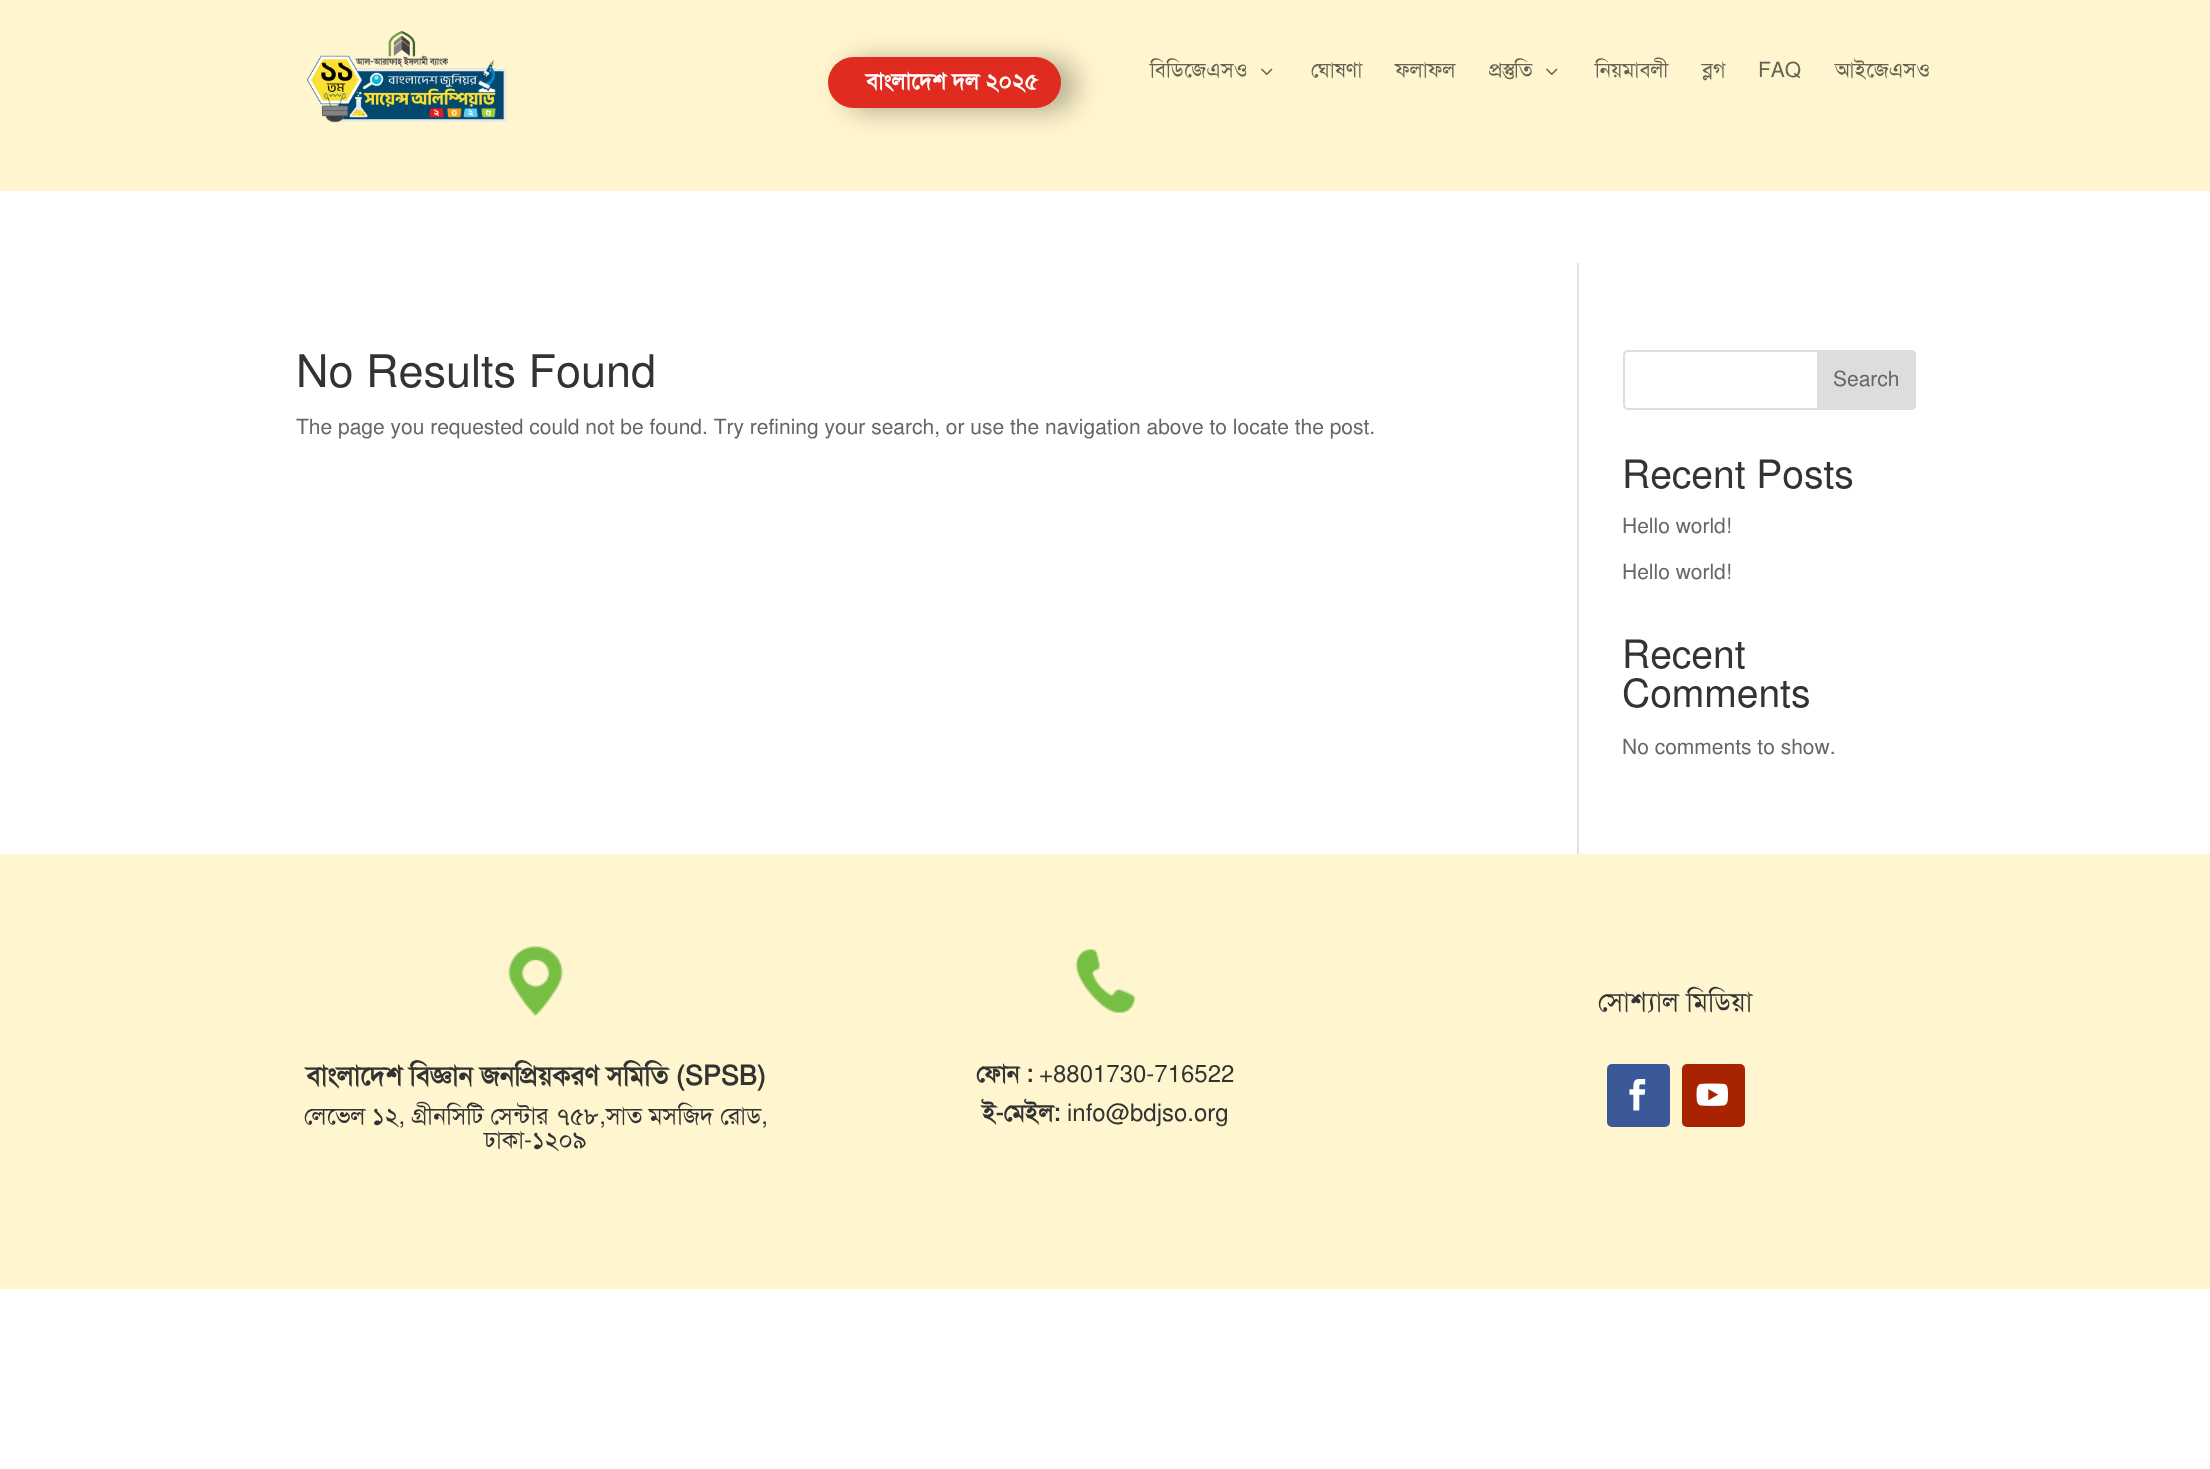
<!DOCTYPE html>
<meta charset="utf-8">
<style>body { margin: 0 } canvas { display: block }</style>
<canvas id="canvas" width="2210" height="1469"></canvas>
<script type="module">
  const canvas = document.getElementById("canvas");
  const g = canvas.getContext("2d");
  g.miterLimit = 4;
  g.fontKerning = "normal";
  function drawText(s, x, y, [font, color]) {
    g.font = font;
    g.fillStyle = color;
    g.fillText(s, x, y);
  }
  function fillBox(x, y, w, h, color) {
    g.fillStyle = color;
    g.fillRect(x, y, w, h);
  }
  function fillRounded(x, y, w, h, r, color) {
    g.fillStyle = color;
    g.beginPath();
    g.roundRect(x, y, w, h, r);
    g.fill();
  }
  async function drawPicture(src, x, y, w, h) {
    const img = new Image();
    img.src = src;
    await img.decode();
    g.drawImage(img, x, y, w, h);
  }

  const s1 = ["bold 22.5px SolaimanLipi", "#FFFFFF"];
  const s2 = ["21px SolaimanLipi", "#666252"];
  const s3 = ["45px SolaimanLipi", "#333333"];
  const s4 = ["21px SolaimanLipi", "#666666"];
  const s5 = ["39px SolaimanLipi", "#333333"];
  const s6 = ["27px SolaimanLipi", "#333333"];
  const s7 = ["bold 27px SolaimanLipi", "#333333"];
  const s8 = ["24px SolaimanLipi", "#333333"];
  const s9 = ["bold 24px SolaimanLipi", "#333333"];

  fillBox(0, 0, 2210, 1469, "#FFFFFF");
  fillBox(0, 0, 2210, 191, "#FFF5CE");
  await drawPicture("pic1.png", 306, 30, 201, 93);
  g.fillStyle = "rgba(0, 0, 0, 0.3)";
  g.filter = "blur(13.5px)";
  g.beginPath();
  g.roundRect(843, 60, 233, 51, 25.5);
  g.fill();
  g.filter = "none";
  fillRounded(828, 57, 233, 51, 25.5, "#E02B20");
  drawText("বাংলাদেশ দল ২০২৫", 866, 89, s1);
  drawText("বিডিজেএসও", 1150, 77, s2);
  await drawPicture("pic2.png", 1261, 68, 12, 7);
  drawText("ঘোষণা", 1311, 77, s2);
  drawText("ফলাফল", 1395, 77, s2);
  drawText("প্রস্তুতি", 1489, 77, s2);
  await drawPicture("pic2.png", 1546, 68, 12, 7);
  drawText("নিয়মাবলী", 1595, 77, s2);
  drawText("ব্লগ", 1702, 77, s2);
  drawText("FAQ", 1758, 77, s2);
  drawText("আইজেএসও", 1835, 77, s2);
  fillBox(1577, 263, 2, 591, "#E2E2E2");
  drawText("No Results Found", 296, 387, s3);
  drawText("The page you requested could not be found. Try refining your search, or use the navigation above to locate the post.", 296, 434, s4);
  g.beginPath();
  g.roundRect(1624, 351, 291, 58, 4);
  g.strokeStyle = "#DDDDDD";
  g.lineWidth = 2;
  g.stroke();
  g.fillStyle = "#DDDDDD";
  g.beginPath();
  g.roundRect(1818, 351, 97, 58, [0, 4, 4, 0]);
  g.fill();
  g.stroke();
  drawText("Search", 1833, 386, s4);
  drawText("Recent Posts", 1622, 488, s5);
  drawText("Hello world!", 1622, 533, s4);
  drawText("Hello world!", 1622, 579, s4);
  drawText("Recent", 1622, 668, s5);
  drawText("Comments", 1622, 707, s5);
  drawText("No comments to show.", 1622, 754, s4);
  fillBox(0, 854, 2210, 435, "#FFF5CE");
  drawText("সোশ্যাল মিডিয়া", 1598, 1011, s6);
  fillRounded(1607, 1064, 63, 63, 5, "#3B5998");
  await drawPicture("pic3.png", 1629, 1079, 17, 32);
  fillRounded(1682, 1064, 63, 63, 5, "#A82400");
  await drawPicture("pic4.png", 1696, 1083, 32, 23);
  await drawPicture("pic5.png", 508, 946, 55, 70);
  drawText("বাংলাদেশ বিজ্ঞান জনপ্রিয়করণ সমিতি (SPSB)", 306, 1085, s7);
  drawText("লেভেল ১২, গ্রীনসিটি সেন্টার ৭৫৮,সাত মসজিদ রোড,", 304, 1124, s8);
  drawText("ঢাকা-১২০৯", 484, 1148, s8);
  await drawPicture("pic6.png", 1075, 949, 61, 64);
  drawText("ফোন :", 976, 1082, s9);
  drawText("+8801730-716522", 1039, 1082, s8);
  drawText("ই-মেইল:", 982, 1121, s9);
  drawText("info@bdjso.org", 1067, 1121, s8);
</script>
